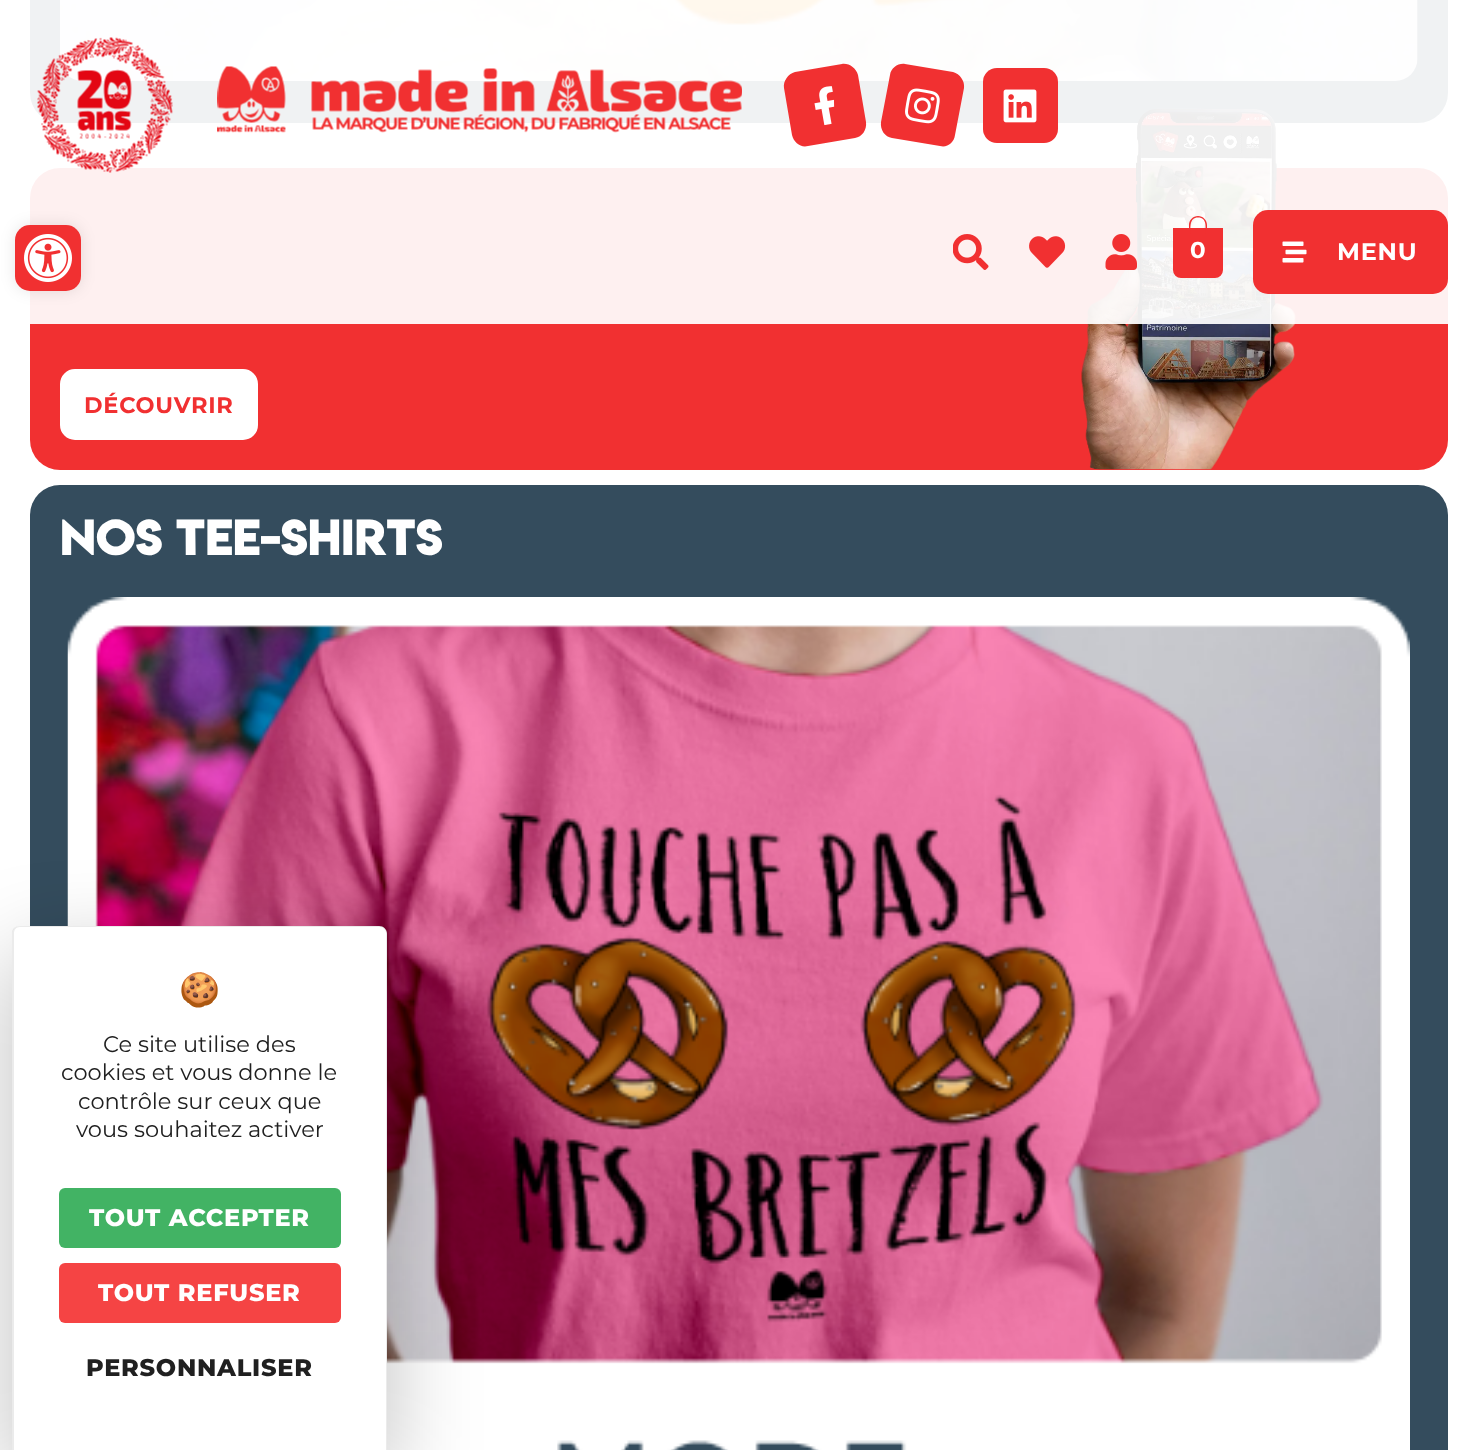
<!DOCTYPE html>
<meta charset="utf-8">
<style>body { margin: 0 } canvas { display: block }</style>
<canvas id="canvas" width="1477" height="1450"></canvas>
<script type="module">
  const canvas = document.getElementById("canvas");
  const g = canvas.getContext("2d");
  g.miterLimit = 4;
  g.fontKerning = "normal";
  function drawText(s, x, y, [font, color]) {
    g.font = font;
    g.fillStyle = color;
    g.fillText(s, x, y);
  }
  function fillBox(x, y, w, h, color) {
    g.fillStyle = color;
    g.fillRect(x, y, w, h);
  }
  function fillRounded(x, y, w, h, r, color) {
    g.fillStyle = color;
    g.beginPath();
    g.roundRect(x, y, w, h, r);
    g.fill();
  }
  async function drawPicture(src, x, y, w, h) {
    const img = new Image();
    img.src = src;
    await img.decode();
    g.drawImage(img, x, y, w, h);
  }

  const s1 = ["bold 23px Montserrat", "#FFFFFF"];
  const s2 = ["bold 24px Montserrat", "#FFFFFF"];
  const s3 = ["bold 22.5px Montserrat", "#F13031"];
  const s4 = ["bold 45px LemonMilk", "#FFFFFF"];
  const s5 = ["33px Noto Color Emoji", "#202020"];
  const s6 = ["22.5px Montserrat", "#202020"];
  const s7 = ["800 24px Montserrat", "#FFFFFF"];
  const s8 = ["800 24px Montserrat", "#202020"];

  fillBox(0, 0, 1477, 1450, "#FFFFFF");
  fillRounded(30, -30, 1418, 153, 30, "#344C5D");
  await drawPicture("pic11.png", 60, 0, 1358, 81);
  fillRounded(30, 168, 1418, 302, 30, "#F13031");
  await drawPicture("pic12.png", 1081, 108, 215, 362);
  fillBox(30, 0, 1418, 324, "rgba(255, 255, 255, 0.93)");
  g.fillStyle = "rgba(0, 0, 0, 0.1)";
  g.filter = "blur(7.5px)";
  g.beginPath();
  g.roundRect(15, 225, 66, 66, 15);
  g.fill();
  g.filter = "none";
  fillRounded(15, 225, 66, 66, 15, "#F13031");
  await drawPicture("pic1.png", 24, 234, 48, 48);
  await drawPicture("pic2.png", 37, 37, 136, 136);
  await drawPicture("pic3.png", 217, 66, 525, 67);
  g.beginPath();
  g.moveTo(795, 72);
  g.lineTo(842, 64);
  g.bezierCurveTo(849, 63, 856, 68, 858, 75);
  g.lineTo(866, 122);
  g.bezierCurveTo(867, 130, 862, 137, 855, 138);
  g.lineTo(808, 146);
  g.bezierCurveTo(801, 148, 794, 143, 792, 135);
  g.lineTo(784, 88);
  g.bezierCurveTo(783, 81, 788, 74, 795, 72);
  g.closePath();
  g.fill();
  await drawPicture("pic4.png", 814, 86, 21, 40);
  g.beginPath();
  g.moveTo(905, 64);
  g.lineTo(953, 72);
  g.bezierCurveTo(960, 74, 965, 81, 964, 88);
  g.lineTo(955, 135);
  g.bezierCurveTo(954, 143, 947, 148, 940, 146);
  g.lineTo(892, 138);
  g.bezierCurveTo(885, 137, 880, 130, 881, 122);
  g.lineTo(890, 75);
  g.bezierCurveTo(891, 68, 898, 63, 905, 64);
  g.closePath();
  g.fill();
  await drawPicture("pic5.png", 905, 88, 35, 36);
  fillRounded(983, 68, 75, 75, 14, "#F13031");
  await drawPicture("pic6.png", 1003, 89, 34, 34);
  await drawPicture("pic7.png", 953, 234, 36, 36);
  await drawPicture("pic8.png", 1029, 236, 37, 32);
  await drawPicture("pic9.png", 1105, 234, 32, 36);
  g.beginPath();
  g.roundRect(1174, 229, 48, 48, [0, 0, 7, 7]);
  g.fill();
  g.strokeStyle = "#F13031";
  g.lineWidth = 2;
  g.stroke();
  g.beginPath();
  g.moveTo(1198, 216);
  g.bezierCurveTo(1203, 216, 1207, 220, 1207, 225);
  g.lineTo(1207, 234);
  g.lineTo(1189, 234);
  g.lineTo(1189, 225);
  g.bezierCurveTo(1189, 220, 1193, 216, 1198, 216);
  g.closePath();
  g.moveTo(1198, 217.5);
  g.bezierCurveTo(1207.5, 217.5, 1205.5, 228, 1205.5, 234);
  g.lineTo(1190.5, 234);
  g.bezierCurveTo(1190.5, 228, 1189, 217.5, 1198, 217.5);
  g.closePath();
  g.fill("evenodd");
  drawText("0", 1190, 258, s1);
  fillRounded(1253, 210, 195, 84, 15, "#F13031");
  await drawPicture("pic10.png", 1282, 241, 25, 22);
  g.letterSpacing = "0.75px";
  drawText("MENU", 1337, 260, s2);
  g.beginPath();
  g.roundRect(61.5, 370.5, 195, 68, 13.5);
  g.fill();
  g.strokeStyle = "#FFFFFF";
  g.lineWidth = 3;
  g.stroke();
  drawText("DÉCOUVRIR", 84, 413, s3);
  fillRounded(30, 485, 1418, 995, 30, "#344C5D");
  g.letterSpacing = "0px";
  drawText("NOS TEE-SHIRTS", 60, 555, s4);
  await drawPicture("pic13.png", 67, 597, 1343, 853);
  g.fillStyle = "rgba(0, 0, 0, 0.25)";
  g.filter = "blur(45px)";
  g.beginPath();
  g.roundRect(12, 956, 375, 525, 8);
  g.fill();
  g.filter = "none";
  g.fillStyle = "#FFFFFF";
  g.beginPath();
  g.moveTo(20, 926);
  g.lineTo(379, 926);
  g.bezierCurveTo(383.5, 926, 387, 929.5, 387, 934);
  g.lineTo(387, 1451);
  g.lineTo(12, 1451);
  g.lineTo(12, 934);
  g.bezierCurveTo(12, 929.5, 15.5, 926, 20, 926);
  g.closePath();
  g.fill();
  g.fillStyle = "rgba(0, 0, 0, 0.08)";
  g.beginPath();
  g.moveTo(20, 926);
  g.lineTo(380, 926);
  g.bezierCurveTo(384, 926, 387, 929, 387, 933);
  g.lineTo(387, 1450);
  g.lineTo(12, 1450);
  g.lineTo(12, 933);
  g.bezierCurveTo(12, 929, 15, 926, 20, 926);
  g.closePath();
  g.moveTo(20, 927);
  g.lineTo(380, 927);
  g.bezierCurveTo(383, 927, 386, 930, 386, 933);
  g.lineTo(386, 1450);
  g.lineTo(14, 1450);
  g.lineTo(14, 933);
  g.bezierCurveTo(14, 930, 16, 927, 20, 927);
  g.closePath();
  g.fill("evenodd");
  drawText("🍪", 179, 1001, s5);
  drawText("Ce site utilise des", 103, 1052, s6);
  drawText("cookies et vous donne le", 61, 1080, s6);
  drawText("contrôle sur ceux que", 78, 1109, s6);
  drawText("vous souhaitez activer", 76, 1137, s6);
  fillRounded(59, 1188, 282, 60, 6, "#42B364");
  g.letterSpacing = "0.75px";
  drawText("TOUT ACCEPTER", 89, 1226, s7);
  fillRounded(59, 1263, 282, 60, 6, "#F54444");
  drawText("TOUT REFUSER", 98, 1301, s7);
  drawText("PERSONNALISER", 86, 1376, s8);
</script>
